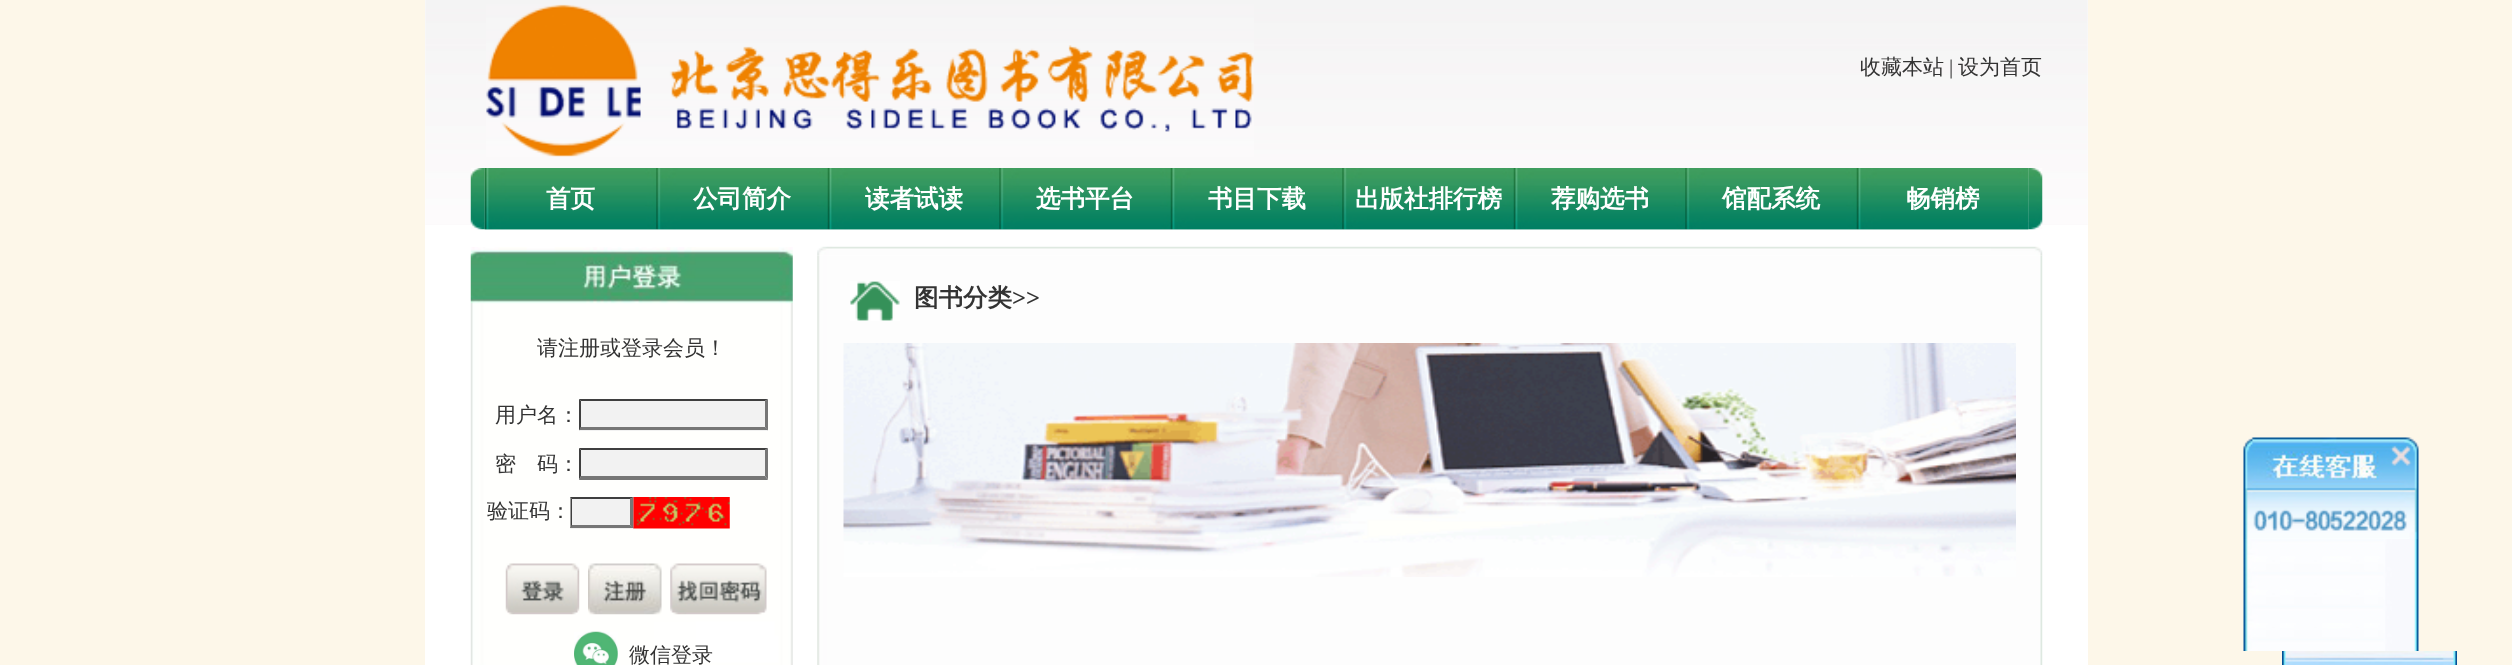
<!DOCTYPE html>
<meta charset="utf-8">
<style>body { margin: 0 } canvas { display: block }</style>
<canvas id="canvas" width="2512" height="665"></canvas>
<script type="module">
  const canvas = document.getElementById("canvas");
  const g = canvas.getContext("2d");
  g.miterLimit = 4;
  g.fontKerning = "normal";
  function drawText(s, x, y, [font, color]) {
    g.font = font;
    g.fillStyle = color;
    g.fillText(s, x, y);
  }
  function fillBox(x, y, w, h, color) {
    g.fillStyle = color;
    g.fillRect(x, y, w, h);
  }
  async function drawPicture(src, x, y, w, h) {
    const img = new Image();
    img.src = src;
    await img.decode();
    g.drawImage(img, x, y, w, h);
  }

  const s1 = ["500 21px WenQuanYi Zen Hei", "#333333"];
  const s2 = ["21px Liberation Serif", "#333333"];
  const s3 = ["bold 24.5px WenQuanYi Zen Hei", "#FFFFFF"];
  const s4 = ["bold 24.5px WenQuanYi Zen Hei", "#333333"];
  const s5 = ["bold 24.5px Liberation Serif", "#333333"];

  fillBox(0, 0, 2512, 665, "#FDF7E9");
  fillBox(425, 0, 1663, 665, "#FFFFFF");
  await drawPicture("pic1.png", 425, 0, 1663, 225);
  await drawPicture("pic2.png", 486, 4, 768, 153);
  drawText("收藏本站", 1860, 74, s1);
  drawText("|", 1949, 74, s2);
  drawText("设为首页", 1958, 74, s1);
  await drawPicture("pic3.png", 470, 168, 15, 62);
  await drawPicture("pic4.png", 484, 168, 1545, 62);
  await drawPicture("pic5.png", 484, 168, 173, 62);
  drawText("首页", 546, 207, s3);
  await drawPicture("pic6.png", 656, 168, 172, 62);
  drawText("公司简介", 693, 207, s3);
  await drawPicture("pic7.png", 827, 168, 173, 62);
  drawText("读者试读", 865, 207, s3);
  await drawPicture("pic8.png", 999, 168, 172, 62);
  drawText("选书平台", 1036, 207, s3);
  await drawPicture("pic9.png", 1170, 168, 173, 62);
  drawText("书目下载", 1208, 207, s3);
  await drawPicture("pic8.png", 1342, 168, 172, 62);
  drawText("出版社排行榜", 1355, 207, s3);
  await drawPicture("pic9.png", 1513, 168, 173, 62);
  drawText("荐购选书", 1551, 207, s3);
  await drawPicture("pic6.png", 1685, 168, 172, 62);
  drawText("馆配系统", 1722, 207, s3);
  await drawPicture("pic10.png", 1856, 168, 173, 62);
  drawText("畅销榜", 1906, 207, s3);
  await drawPicture("pic11.png", 2028, 168, 15, 62);
  await drawPicture("pic13.png", 817, 255, 1226, 410);
  await drawPicture("pic12.png", 817, 246, 1226, 10);
  await drawPicture("pic14.png", 850, 281, 50, 40);
  drawText("图书分类", 914, 306, s4);
  drawText(">>", 1012, 306, s5);
  await drawPicture("pic15.png", 843, 343, 1173, 234);
  await drawPicture("pic16.png", 470, 247, 323, 418);
  drawText("请注册或登录会员！", 537, 355, s1);
  drawText("用户名：", 495, 422, s1);
  fillBox(579, 399, 189, 32, "#F2F2F2");
  g.fillStyle = "#3F3F3F";
  g.beginPath();
  g.moveTo(579, 399);
  g.lineTo(768, 399);
  g.lineTo(765, 401);
  g.lineTo(581, 401);
  g.closePath();
  g.fill();
  g.fillStyle = "#767676";
  g.beginPath();
  g.moveTo(768, 399);
  g.lineTo(768, 430.5);
  g.lineTo(765, 427);
  g.lineTo(765, 401);
  g.closePath();
  g.fill();
  g.beginPath();
  g.moveTo(768, 430);
  g.lineTo(579, 430);
  g.lineTo(581, 427);
  g.lineTo(765, 427);
  g.closePath();
  g.fill();
  g.fillStyle = "#3F3F3F";
  g.beginPath();
  g.moveTo(579, 430.5);
  g.lineTo(579, 399);
  g.lineTo(581, 401);
  g.lineTo(581, 427);
  g.closePath();
  g.fill();
  drawText("密　码：", 495, 471, s1);
  fillBox(579, 448, 189, 32, "#F2F2F2");
  g.fillStyle = "#3F3F3F";
  g.beginPath();
  g.moveTo(579, 448);
  g.lineTo(768, 448);
  g.lineTo(765, 450);
  g.lineTo(581, 450);
  g.closePath();
  g.fill();
  g.fillStyle = "#767676";
  g.beginPath();
  g.moveTo(768, 448);
  g.lineTo(768, 479.5);
  g.lineTo(765, 476);
  g.lineTo(765, 450);
  g.closePath();
  g.fill();
  g.beginPath();
  g.moveTo(768, 480);
  g.lineTo(579, 480);
  g.lineTo(581, 476);
  g.lineTo(765, 476);
  g.closePath();
  g.fill();
  g.fillStyle = "#3F3F3F";
  g.beginPath();
  g.moveTo(579, 479.5);
  g.lineTo(579, 448);
  g.lineTo(581, 450);
  g.lineTo(581, 476);
  g.closePath();
  g.fill();
  drawText("验证码：", 487, 518, s1);
  fillBox(571, 497, 63, 32, "#F2F2F2");
  g.fillStyle = "#3F3F3F";
  g.beginPath();
  g.moveTo(570, 497);
  g.lineTo(634, 497);
  g.lineTo(630, 499);
  g.lineTo(572, 499);
  g.closePath();
  g.fill();
  g.fillStyle = "#767676";
  g.beginPath();
  g.moveTo(633.5, 497);
  g.lineTo(633.5, 528.5);
  g.lineTo(630, 525);
  g.lineTo(630, 499);
  g.closePath();
  g.fill();
  g.beginPath();
  g.moveTo(634, 528);
  g.lineTo(570, 528);
  g.lineTo(572, 525);
  g.lineTo(630, 525);
  g.closePath();
  g.fill();
  g.fillStyle = "#3F3F3F";
  g.beginPath();
  g.moveTo(570.5, 528.5);
  g.lineTo(570.5, 497);
  g.lineTo(572, 499);
  g.lineTo(572, 525);
  g.closePath();
  g.fill();
  await drawPicture("pic17.png", 633, 497, 97, 32);
  await drawPicture("pic18.png", 505, 563, 75, 52);
  await drawPicture("pic19.png", 588, 563, 74, 52);
  await drawPicture("pic20.png", 670, 563, 97, 52);
  await drawPicture("pic21.png", 574, 631, 44, 34);
  drawText("微信登录", 629, 662, s1);
  await drawPicture("pic22.png", 2243, 437, 176, 102);
  await drawPicture("pic23.png", 2243, 539, 176, 112);
  await drawPicture("pic24.png", 2282, 651, 175, 14);
</script>
